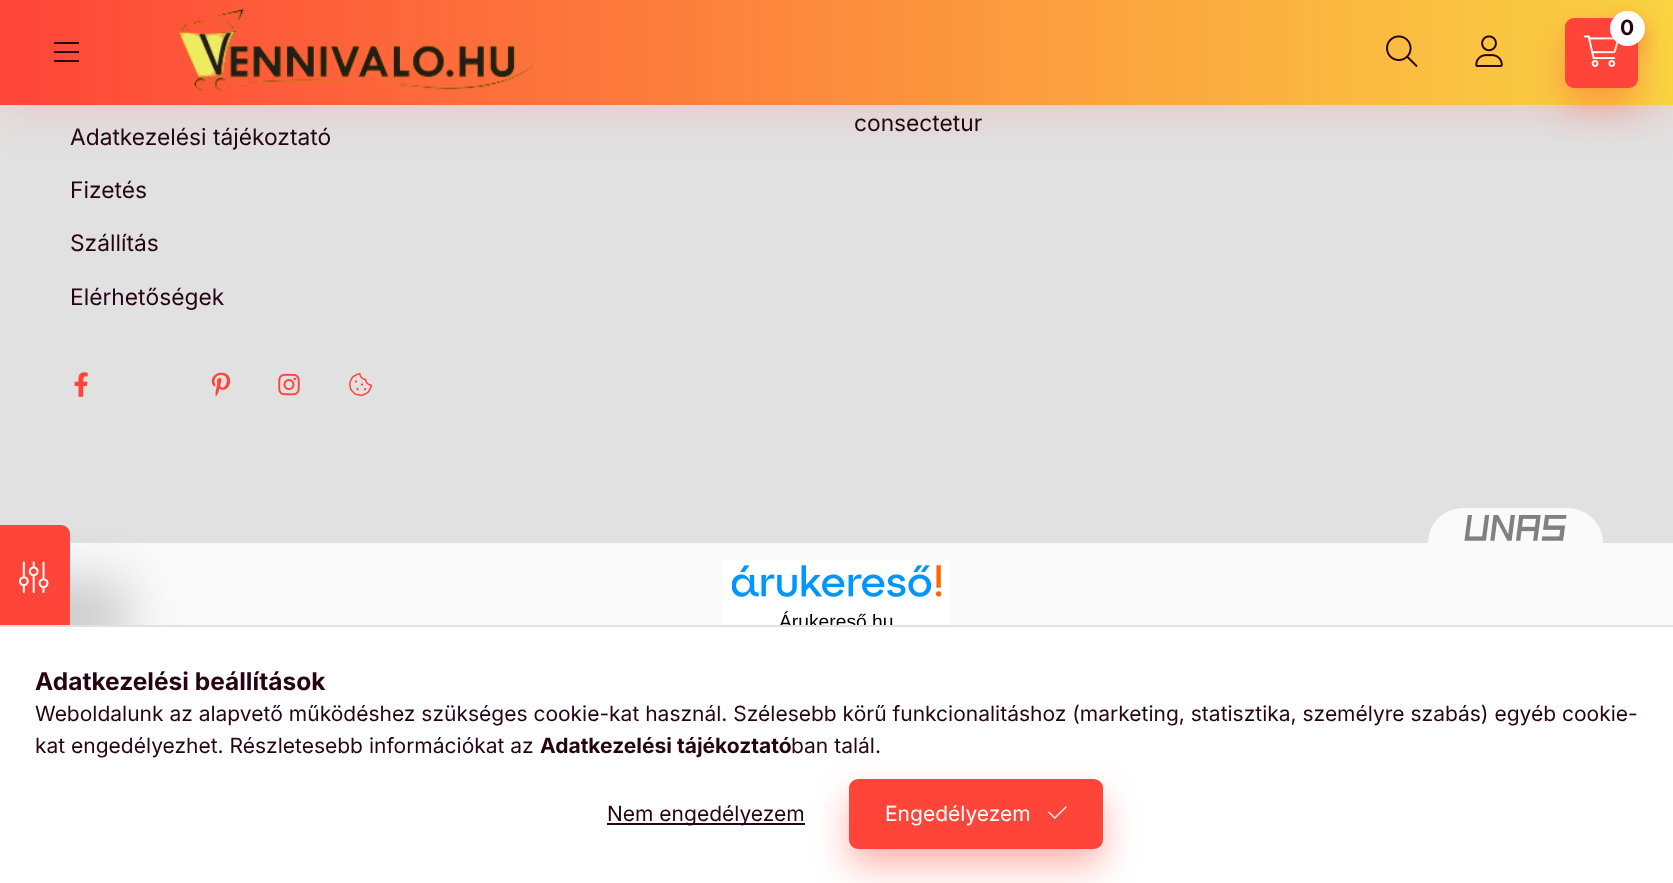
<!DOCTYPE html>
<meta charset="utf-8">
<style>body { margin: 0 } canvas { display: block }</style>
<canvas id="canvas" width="1673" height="883"></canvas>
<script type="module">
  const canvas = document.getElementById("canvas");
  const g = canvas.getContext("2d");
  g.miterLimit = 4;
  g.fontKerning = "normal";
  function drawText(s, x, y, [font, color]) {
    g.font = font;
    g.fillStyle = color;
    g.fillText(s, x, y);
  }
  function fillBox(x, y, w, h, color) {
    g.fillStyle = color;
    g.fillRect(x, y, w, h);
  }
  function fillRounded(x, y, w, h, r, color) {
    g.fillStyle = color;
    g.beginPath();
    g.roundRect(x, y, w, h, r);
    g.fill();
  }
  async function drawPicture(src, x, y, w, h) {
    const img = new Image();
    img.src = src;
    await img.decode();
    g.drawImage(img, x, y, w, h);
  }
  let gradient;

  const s1 = ["bold 21px Inter", "#260413"];
  const s2 = ["22.75px Inter", "#260413"];
  const s3 = ["19.25px Liberation Sans", "#000000"];
  const s4 = ["bold 24.5px Inter", "#260413"];
  const s5 = ["21px Inter", "#260413"];
  const s6 = ["21px Inter", "#FFFFFF"];

  fillBox(0, 0, 1673, 883, "#FAFAFA");
  fillBox(0, 105, 1673, 438, "#E1E1E1");
  g.fillStyle = "rgba(255, 69, 57, 0.2)";
  g.filter = "blur(26px)";
  g.beginPath();
  g.rect(0, 0, 1673, 105);
  g.fill();
  g.filter = "none";
  gradient = g.createLinearGradient(0, 442, 1673, 442);
  gradient.addColorStop(0, "#FF4539");
  gradient.addColorStop(1, "#F9D442");
  g.fillStyle = gradient;
  g.fillRect(0, 0, 1673, 105);
  fillBox(54, 42, 25, 2, "#260413");
  fillBox(54, 51, 25, 2, "#260413");
  fillBox(54, 60, 25, 2, "#260413");
  await drawPicture("pic1.png", 179, 8, 365, 84);
  g.fillStyle = "rgba(255, 69, 57, 0.4)";
  g.filter = "blur(17.5px)";
  g.beginPath();
  g.roundRect(1565, 35, 73, 70, 9);
  g.fill();
  g.filter = "none";
  fillRounded(1565, 18, 73, 70, 9, "#FF4539");
  await drawPicture("pic2.png", 1583, 35, 36, 32);
  g.fillStyle = "rgba(255, 69, 57, 0.4)";
  g.filter = "blur(9px)";
  g.beginPath();
  g.roundRect(1610, 19, 35, 35, 17.5);
  g.fill();
  g.filter = "none";
  g.fillStyle = "#FFFFFF";
  g.beginPath();
  g.arc(1627.5, 28.5, 17.5, 0, Math.PI * 2);
  g.fill();
  drawText("0", 1620, 35, s1);
  await drawPicture("pic3.png", 1386, 35, 32, 32);
  await drawPicture("pic4.png", 1475, 35, 28, 32);
  drawText("consectetur", 854, 131, s2);
  drawText("Adatkezelési tájékoztató", 70, 145, s2);
  drawText("Fizetés", 70, 198, s2);
  drawText("Szállítás", 70, 251, s2);
  drawText("Elérhetőségek", 70, 305, s2);
  await drawPicture("pic5.png", 74, 372, 14, 25);
  await drawPicture("pic6.png", 211, 372, 20, 25);
  await drawPicture("pic7.png", 278, 373, 22, 23);
  await drawPicture("pic8.png", 349, 373, 23, 24);
  g.fillStyle = "#FAFAFA";
  g.beginPath();
  g.roundRect(1428, 508, 175, 35, [35, 35, 0, 0]);
  g.fill();
  await drawPicture("pic9.png", 1464, 515, 103, 26);
  g.fillStyle = "rgba(0, 0, 0, 0.2)";
  g.filter = "blur(26px)";
  g.beginPath();
  g.roundRect(-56, 581, 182, 70, 9);
  g.fill();
  g.filter = "none";
  g.fillStyle = "#FF4539";
  g.beginPath();
  g.moveTo(0, 707);
  g.lineTo(0, 525);
  g.lineTo(61, 525);
  g.bezierCurveTo(66, 525, 70, 529, 70, 534);
  g.lineTo(70, 698);
  g.bezierCurveTo(70, 703, 66, 707, 61, 707);
  g.closePath();
  g.fill();
  await drawPicture("pic10.png", 18, 561, 31, 32);
  fillBox(723, 560, 227, 65, "#FFFFFF");
  await drawPicture("pic11.png", 732, 565, 210, 32);
  drawText("Árukereső.hu", 779, 628, s3);
  fillBox(0, 627, 1673, 256, "#FFFFFF");
  fillBox(0, 625, 1673, 2, "#E1E1E1");
  drawText("Adatkezelési beállítások", 35, 690, s4);
  drawText("Weboldalunk az alapvető működéshez szükséges cookie-kat használ. Szélesebb körű funkcionalitáshoz (marketing, statisztika, személyre szabás) egyéb cookie-", 35, 721, s5);
  drawText("kat engedélyezhet. Részletesebb információkat az", 35, 753, s5);
  drawText("Adatkezelési tájékoztató", 540, 753, s1);
  drawText("ban talál.", 791, 753, s5);
  fillBox(607, 823, 198, 2, "#260413");
  drawText("Nem engedélyezem", 607, 821, s5);
  g.fillStyle = "rgba(255, 69, 57, 0.4)";
  g.filter = "blur(17.5px)";
  g.beginPath();
  g.roundRect(849, 796, 254, 70, 9);
  g.fill();
  g.filter = "none";
  g.fillStyle = "#FF4539";
  g.beginPath();
  g.roundRect(850, 780, 252, 68, 8);
  g.fill();
  g.strokeStyle = "#FF4539";
  g.lineWidth = 2;
  g.stroke();
  drawText("Engedélyezem", 885, 821, s6);
  await drawPicture("pic12.png", 1048, 806, 19, 13);
</script>
